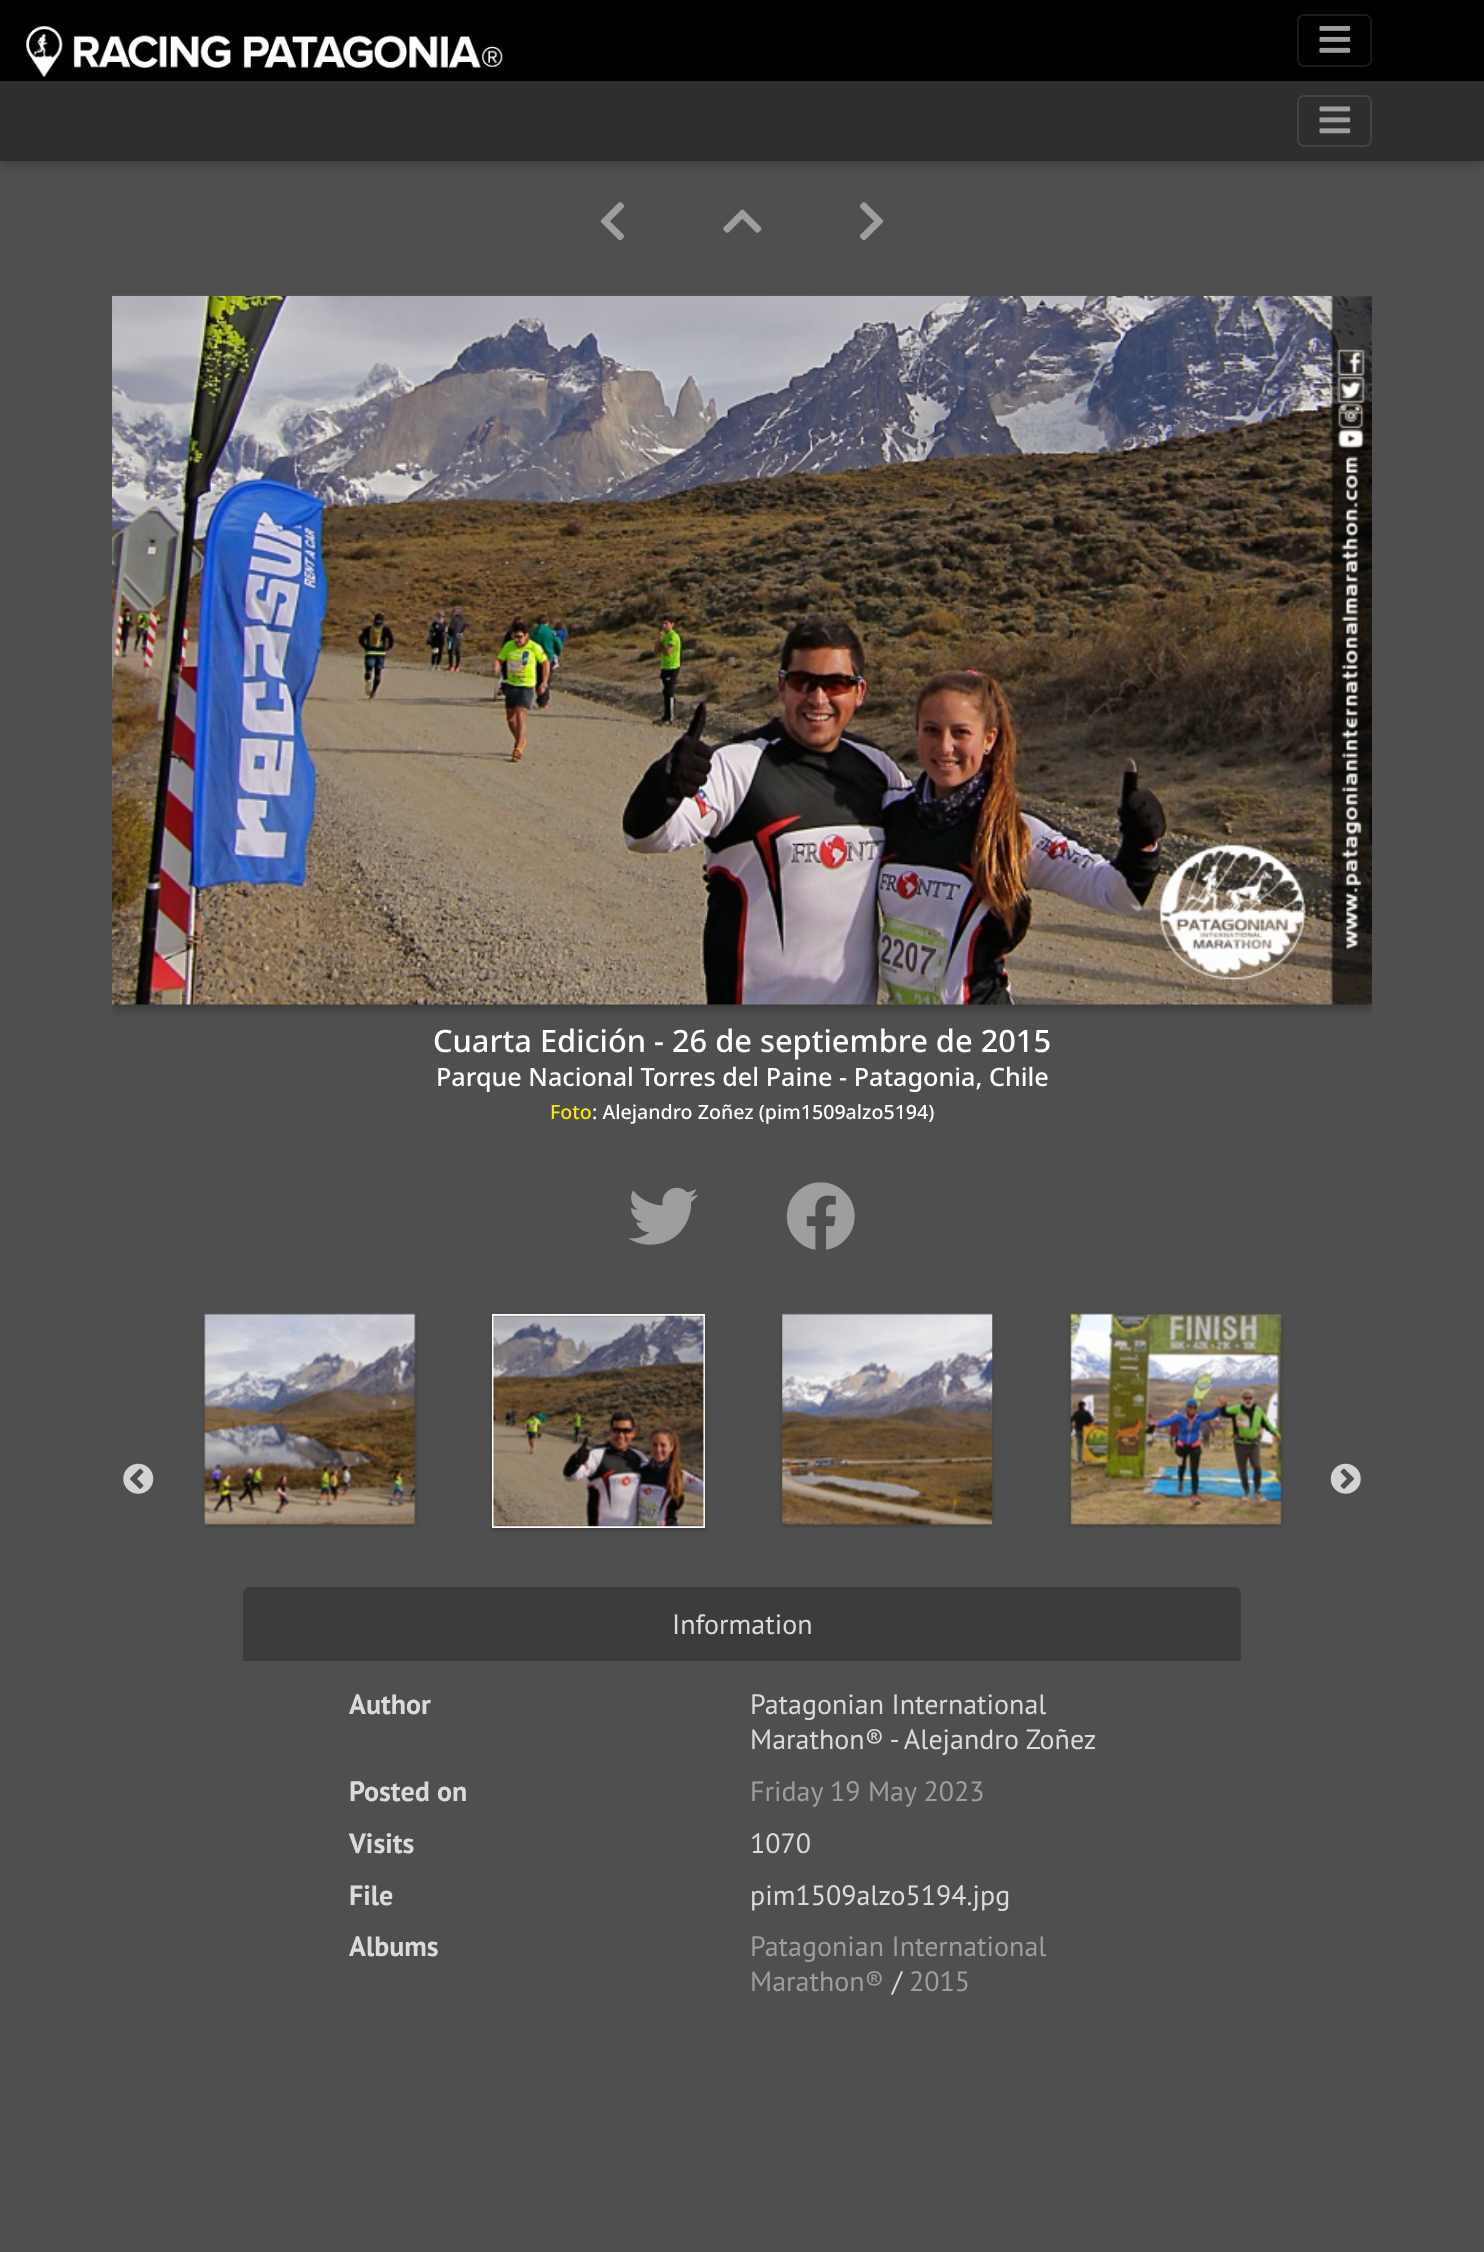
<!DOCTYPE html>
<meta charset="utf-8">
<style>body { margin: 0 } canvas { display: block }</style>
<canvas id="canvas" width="1484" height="2252"></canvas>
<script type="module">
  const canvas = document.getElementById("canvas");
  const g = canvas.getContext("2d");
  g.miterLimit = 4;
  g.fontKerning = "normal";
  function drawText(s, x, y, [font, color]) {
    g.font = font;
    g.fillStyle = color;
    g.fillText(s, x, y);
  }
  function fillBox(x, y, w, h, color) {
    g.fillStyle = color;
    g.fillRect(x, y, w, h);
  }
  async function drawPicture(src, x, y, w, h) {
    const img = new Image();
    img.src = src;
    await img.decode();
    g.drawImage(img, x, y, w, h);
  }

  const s1 = ["500 30.8px Noto Sans", "#FFFFFF"];
  const s2 = ["500 25.2px Noto Sans", "#FFFFFF"];
  const s3 = ["500 19.6px Noto Sans", "#FAE80A"];
  const s4 = ["500 19.6px Noto Sans", "#FFFFFF"];
  const s5 = ["28px PT Sans", "#DBDBDB"];
  const s6 = ["bold 28px PT Sans", "#DBDBDB"];
  const s7 = ["28px PT Sans", "#9E9E9E"];

  fillBox(0, 0, 1484, 2252, "#4F4F4F");
  g.fillStyle = "rgba(0, 0, 0, 0.2)";
  g.filter = "blur(4.5px)";
  g.beginPath();
  g.rect(2, 88, 1480, 77);
  g.fill();
  g.filter = "none";
  fillBox(0, 0, 1484, 81, "#000000");
  await drawPicture("pic1.png", 26, 26, 477, 51);
  g.beginPath();
  g.roundRect(1298, 15, 73, 51, 6);
  g.strokeStyle = "#1A1A1A";
  g.lineWidth = 2;
  g.stroke();
  await drawPicture("pic2.png", 1319, 26, 32, 27);
  fillBox(0, 81, 1484, 80, "#2E2E2E");
  g.beginPath();
  g.roundRect(1298, 96, 73, 50, 6);
  g.strokeStyle = "#434343";
  g.stroke();
  await drawPicture("pic3.png", 1319, 106, 32, 28);
  await drawPicture("pic4.png", 600, 202, 24, 39);
  await drawPicture("pic5.png", 723, 209, 39, 24);
  await drawPicture("pic6.png", 860, 202, 24, 39);
  g.save();
  g.beginPath();
  g.rect(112, 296, 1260, 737);
  g.clip();
  g.fillStyle = "rgba(0, 0, 0, 0.23)";
  g.filter = "blur(5px)";
  g.beginPath();
  g.rect(112, 301, 1260, 709);
  g.fill();
  g.filter = "none";
  g.restore();
  await drawPicture("pic7.png", 112, 295, 1260, 710);
  drawText("Cuarta Edición - 26 de septiembre de 2015", 433, 1052, s1);
  drawText("Parque Nacional Torres del Paine - Patagonia, Chile", 436, 1086, s2);
  drawText("Foto", 550, 1119, s3);
  drawText(": Alejandro Zoñez (pim1509alzo5194)", 592, 1119, s4);
  await drawPicture("pic8.png", 628, 1187, 70, 58);
  await drawPicture("pic9.png", 786, 1182, 69, 68);
  await drawPicture("pic10.png", 123, 1463, 31, 31);
  g.fillStyle = "rgba(0, 0, 0, 0.24)";
  g.filter = "blur(2px)";
  g.beginPath();
  g.rect(205, 1316, 210, 210);
  g.fill();
  g.filter = "none";
  await drawPicture("pic11.png", 204, 1313, 212, 212);
  g.filter = "blur(2px)";
  g.beginPath();
  g.rect(492, 1316, 213, 214);
  g.fill();
  g.filter = "none";
  g.strokeStyle = "#FFFFFF";
  g.strokeRect(493, 1315, 211, 212);
  await drawPicture("pic12.png", 493, 1315, 212, 212);
  g.filter = "blur(2px)";
  g.beginPath();
  g.rect(782, 1316, 210, 210);
  g.fill();
  g.filter = "none";
  await drawPicture("pic13.png", 782, 1313, 211, 212);
  g.filter = "blur(2px)";
  g.beginPath();
  g.rect(1071, 1316, 210, 210);
  g.fill();
  g.filter = "none";
  await drawPicture("pic14.png", 1070, 1313, 212, 212);
  await drawPicture("pic15.png", 1330, 1463, 31, 31);
  g.fillStyle = "#3C3C3C";
  g.beginPath();
  g.roundRect(244, 1588, 996, 72, [6, 6, 0, 0]);
  g.fill();
  g.strokeStyle = "#3C3C3C";
  g.stroke();
  drawText("Information", 672, 1634, s5);
  drawText("Author", 349, 1714, s6);
  drawText("Patagonian International", 750, 1714, s5);
  drawText("Marathon® - Alejandro Zoñez", 750, 1749, s5);
  drawText("Posted on", 349, 1801, s6);
  drawText("Friday 19 May 2023", 750, 1801, s7);
  drawText("Visits", 349, 1853, s6);
  drawText("1070", 750, 1853, s5);
  drawText("File", 349, 1905, s6);
  drawText("pim1509alzo5194.jpg", 750, 1905, s5);
  drawText("Albums", 349, 1956, s6);
  drawText("Patagonian International", 750, 1956, s7);
  drawText("Marathon®", 750, 1991, s7);
  drawText("/", 892, 1991, s5);
  drawText("2015", 909, 1991, s7);
</script>
